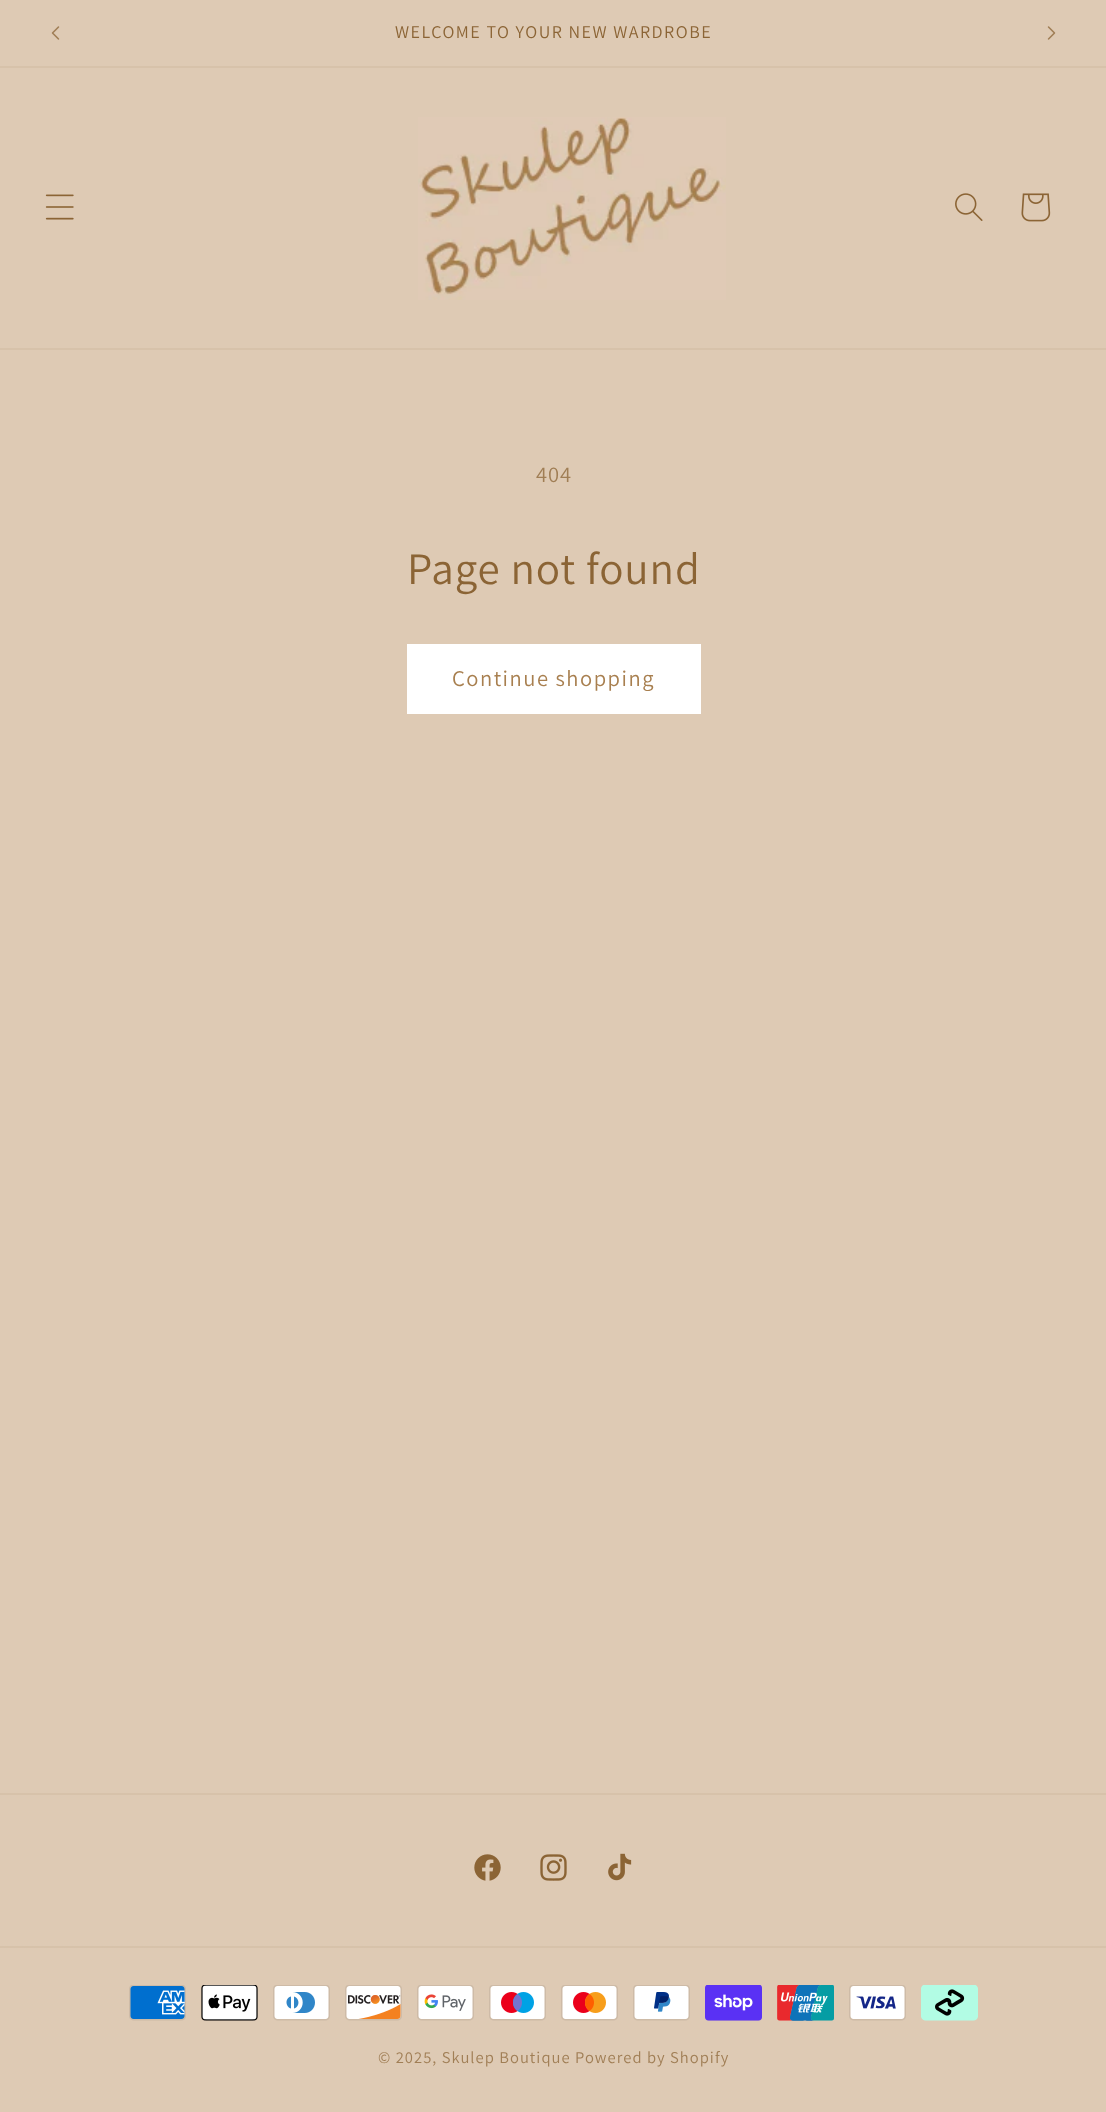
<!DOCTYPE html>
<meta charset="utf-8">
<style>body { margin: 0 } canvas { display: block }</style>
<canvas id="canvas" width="1106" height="2112"></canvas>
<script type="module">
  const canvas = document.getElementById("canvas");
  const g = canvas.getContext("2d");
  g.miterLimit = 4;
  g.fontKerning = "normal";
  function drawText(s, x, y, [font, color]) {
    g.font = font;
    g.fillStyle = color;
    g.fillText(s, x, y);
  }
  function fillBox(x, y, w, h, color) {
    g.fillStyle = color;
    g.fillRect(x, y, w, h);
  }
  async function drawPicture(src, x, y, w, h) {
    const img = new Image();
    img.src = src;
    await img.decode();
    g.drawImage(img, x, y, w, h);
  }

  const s1 = ["18px Assistant", "#8B6435"];
  const s2 = ["22.5px Assistant", "#A07E55"];
  const s3 = ["45px Assistant", "#8B6435"];
  const s4 = ["22.5px Assistant", "#A87F4F"];
  const s5 = ["16.5px Assistant", "#A07E55"];

  fillBox(0, 0, 1106, 2112, "#DECAB4");
  fillBox(0, 66, 1106, 2, "#D7C2AA");
  await drawPicture("pic1.png", 51, 26, 9, 14);
  g.letterSpacing = "1.5px";
  drawText("WELCOME TO YOUR NEW WARDROBE", 395, 38, s1);
  await drawPicture("pic2.png", 1047, 26, 9, 14);
  fillBox(0, 348, 1106, 2, "#D7C2AA");
  await drawPicture("pic3.png", 45, 194, 29, 26);
  await drawPicture("pic4.png", 418, 117, 308, 183);
  await drawPicture("pic5.png", 955, 193, 28, 28);
  await drawPicture("pic6.png", 1021, 193, 30, 29);
  g.letterSpacing = "0.9px";
  drawText("404", 536, 482, s2);
  drawText("Page not found", 407, 584, s3);
  fillBox(407, 644, 294, 70, "#FFFFFF");
  g.letterSpacing = "1.5px";
  drawText("Continue shopping", 452, 686, s4);
  fillBox(0, 1793, 1106, 2, "#D7C2AA");
  await drawPicture("pic7.png", 474, 1854, 27, 27);
  await drawPicture("pic8.png", 540, 1854, 27, 27);
  await drawPicture("pic9.png", 608, 1853, 24, 28);
  fillBox(0, 1946, 1106, 2, "#D7C2AA");
  await drawPicture("pic10.png", 129, 1985, 57, 36);
  await drawPicture("pic11.png", 201, 1985, 57, 36);
  await drawPicture("pic12.png", 273, 1985, 57, 36);
  await drawPicture("pic13.png", 345, 1985, 57, 36);
  await drawPicture("pic14.png", 417, 1985, 57, 36);
  await drawPicture("pic15.png", 489, 1985, 57, 36);
  await drawPicture("pic16.png", 561, 1985, 57, 36);
  await drawPicture("pic17.png", 633, 1985, 57, 36);
  await drawPicture("pic18.png", 705, 1985, 57, 36);
  await drawPicture("pic19.png", 777, 1985, 57, 36);
  await drawPicture("pic20.png", 849, 1985, 57, 36);
  await drawPicture("pic21.png", 921, 1985, 57, 36);
  g.letterSpacing = "1.05px";
  drawText("© 2025, Skulep Boutique Powered by Shopify", 378, 2063, s5);
</script>
